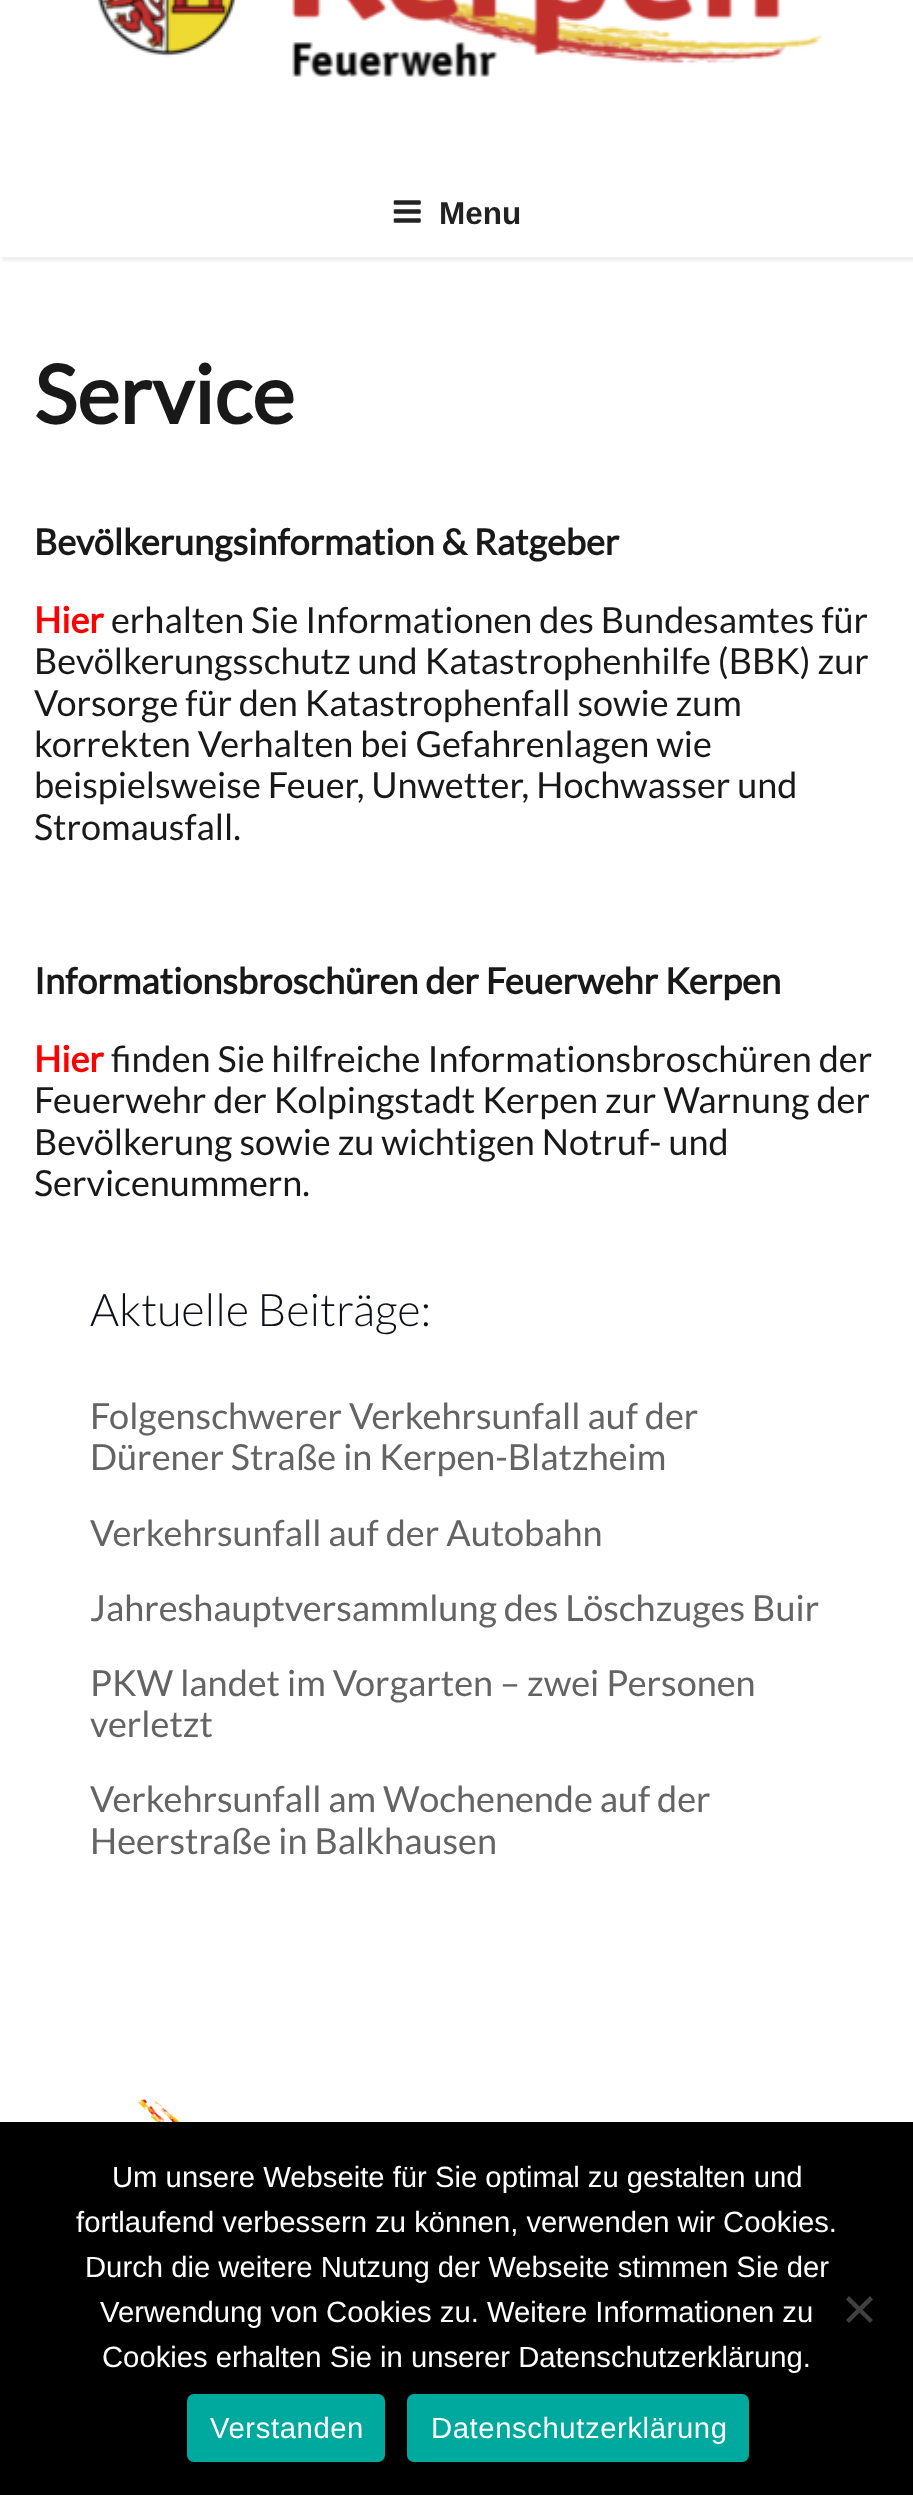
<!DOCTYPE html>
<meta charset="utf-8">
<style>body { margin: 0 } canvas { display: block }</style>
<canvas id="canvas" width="913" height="2495"></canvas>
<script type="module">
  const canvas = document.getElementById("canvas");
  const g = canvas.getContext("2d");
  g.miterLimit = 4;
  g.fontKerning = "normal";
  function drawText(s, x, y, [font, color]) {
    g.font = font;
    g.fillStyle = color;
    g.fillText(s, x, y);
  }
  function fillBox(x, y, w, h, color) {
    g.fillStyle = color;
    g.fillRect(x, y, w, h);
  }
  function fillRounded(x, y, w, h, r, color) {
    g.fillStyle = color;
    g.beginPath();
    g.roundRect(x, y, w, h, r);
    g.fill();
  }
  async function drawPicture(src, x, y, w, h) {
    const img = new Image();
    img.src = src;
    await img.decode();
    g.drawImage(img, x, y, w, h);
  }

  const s1 = ["bold 31.5px Liberation Sans", "#222222"];
  const s2 = ["bold 81px Lato", "#191919"];
  const s3 = ["bold 36px Lato", "#191919"];
  const s4 = ["bold 36px Lato", "#FF0000"];
  const s5 = ["36px Lato", "#191919"];
  const s6 = ["300 45px Lato", "#0D0F1A"];
  const s7 = ["36px Lato", "#656464"];
  const s8 = ["29.25px Liberation Sans", "#FFFFFF"];

  fillBox(0, 0, 913, 2495, "#FFFFFF");
  g.fillStyle = "#F0F0F0";
  g.filter = "blur(1px)";
  g.beginPath();
  g.rect(2, -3, 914, 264);
  g.fill();
  g.filter = "none";
  fillBox(1, 0, 912, 257, "#FFFFFF");
  await drawPicture("pic1.png", 97, 0, 726, 77);
  await drawPicture("pic2.png", 393, 200, 28, 23);
  drawText("Menu", 439, 224, s1);
  drawText("Service", 34, 424, s2);
  drawText("Bevölkerungsinformation & Ratgeber", 34, 555, s3);
  drawText("Hier", 34, 633, s4);
  drawText("erhalten Sie Informationen des Bundesamtes für", 111, 633, s5);
  drawText("Bevölkerungsschutz und Katastrophenhilfe (BBK) zur", 34, 674, s5);
  drawText("Vorsorge für den Katastrophenfall sowie zum", 34, 716, s5);
  drawText("korrekten Verhalten bei Gefahrenlagen wie", 34, 757, s5);
  drawText("beispielsweise Feuer, Unwetter, Hochwasser und", 34, 798, s5);
  drawText("Stromausfall.", 34, 840, s5);
  drawText("Informationsbroschüren der Feuerwehr Kerpen", 34, 994, s3);
  drawText("Hier", 34, 1072, s4);
  drawText("finden Sie hilfreiche Informationsbroschüren der", 111, 1072, s5);
  drawText("Feuerwehr der Kolpingstadt Kerpen zur Warnung der", 34, 1113, s5);
  drawText("Bevölkerung sowie zu wichtigen Notruf- und", 34, 1155, s5);
  drawText("Servicenummern.", 34, 1196, s5);
  drawText("Aktuelle Beiträge:", 90, 1326, s6);
  drawText("Folgenschwerer Verkehrsunfall auf der", 90, 1429, s7);
  drawText("Dürener Straße in Kerpen-Blatzheim", 90, 1470, s7);
  drawText("Verkehrsunfall auf der Autobahn", 90, 1546, s7);
  drawText("Jahreshauptversammlung des Löschzuges Buir", 90, 1621, s7);
  drawText("PKW landet im Vorgarten – zwei Personen", 90, 1696, s7);
  drawText("verletzt", 90, 1737, s7);
  drawText("Verkehrsunfall am Wochenende auf der", 90, 1812, s7);
  drawText("Heerstraße in Balkhausen", 90, 1854, s7);
  await drawPicture("pic3.png", 138, 2099, 42, 23);
  fillBox(0, 2122, 913, 373, "#000000");
  drawText("Um unsere Webseite für Sie optimal zu gestalten und", 112, 2187, s8);
  drawText("fortlaufend verbessern zu können, verwenden wir Cookies.", 76, 2232, s8);
  drawText("Durch die weitere Nutzung der Webseite stimmen Sie der", 85, 2277, s8);
  drawText("Verwendung von Cookies zu. Weitere Informationen zu", 100, 2322, s8);
  drawText("Cookies erhalten Sie in unserer Datenschutzerklärung.", 102, 2367, s8);
  g.fillStyle = "#404040";
  g.beginPath();
  g.moveTo(870, 2296);
  g.lineTo(873, 2299.5);
  g.lineTo(849, 2323);
  g.lineTo(846, 2320);
  g.closePath();
  g.fill();
  g.beginPath();
  g.moveTo(846, 2299.5);
  g.lineTo(849, 2296);
  g.lineTo(873, 2320);
  g.lineTo(870, 2323);
  g.closePath();
  g.fill();
  fillRounded(187, 2394, 198, 68, 7, "#00A99D");
  g.letterSpacing = "0.6px";
  drawText("Verstanden", 210, 2438, s8);
  fillRounded(407, 2394, 342, 68, 7, "#00A99D");
  drawText("Datenschutzerklärung", 431, 2438, s8);
</script>
